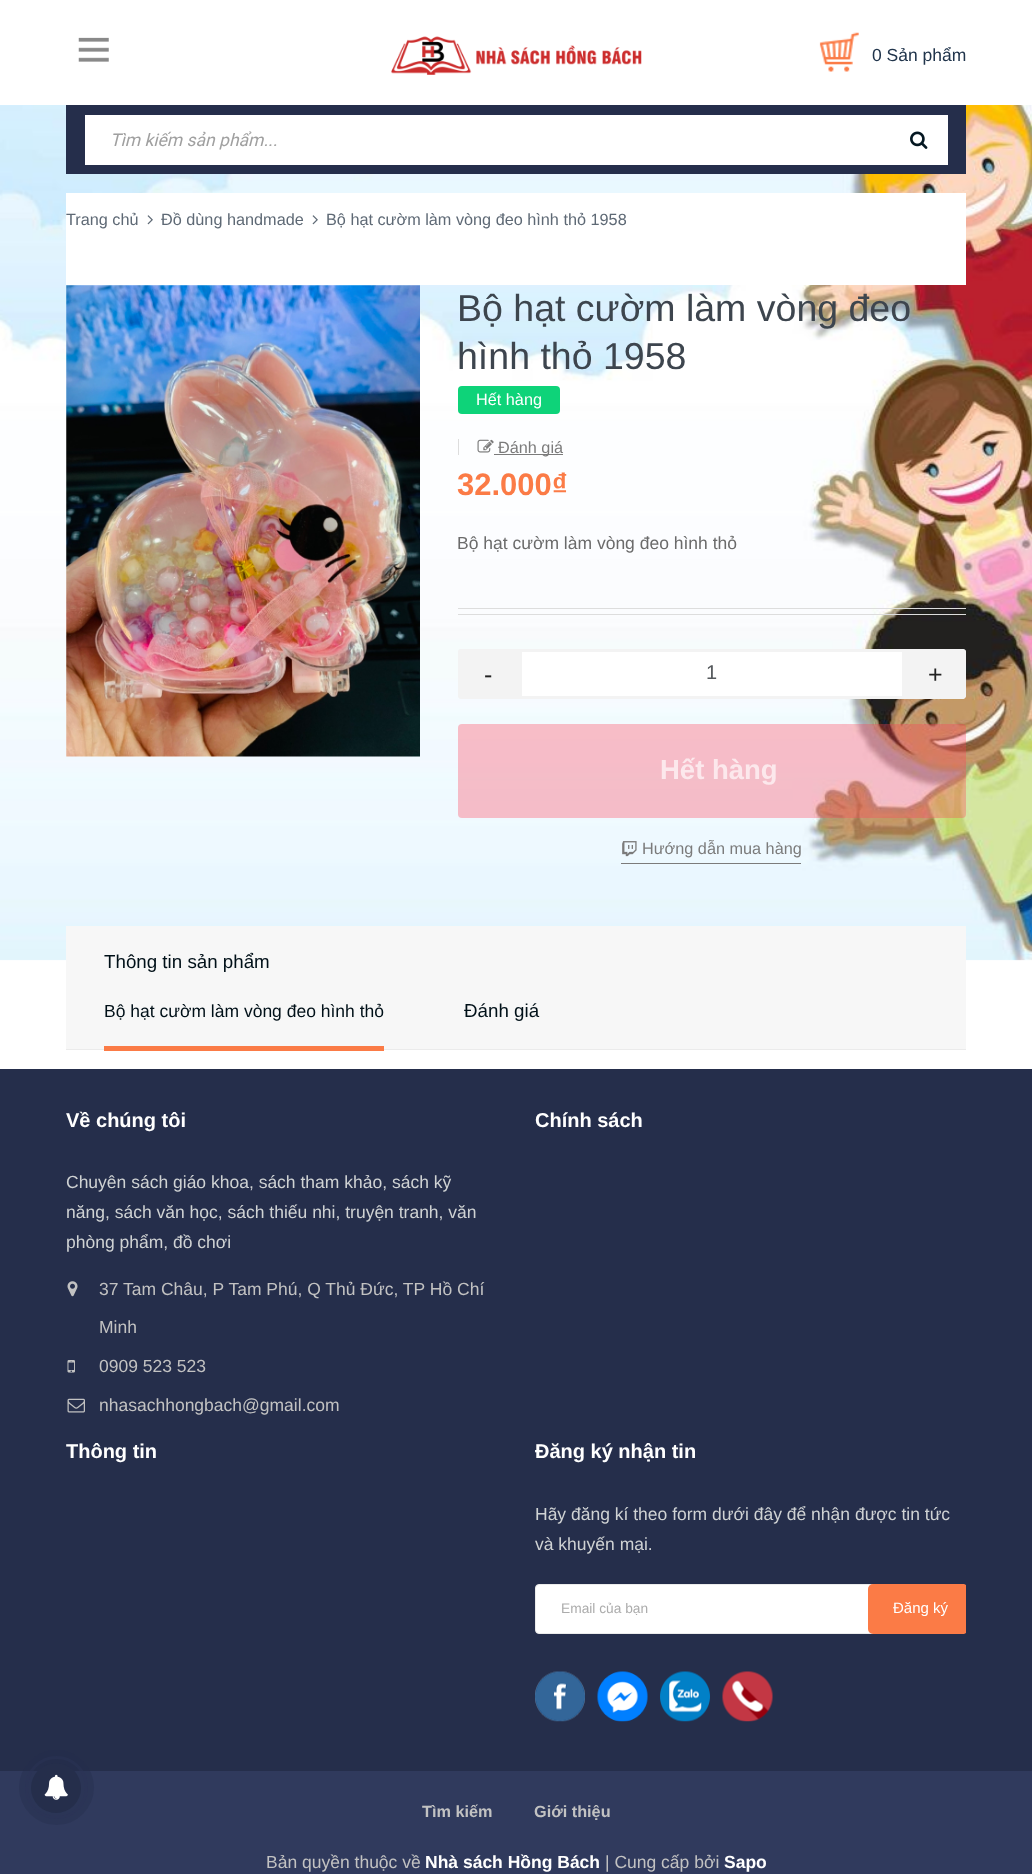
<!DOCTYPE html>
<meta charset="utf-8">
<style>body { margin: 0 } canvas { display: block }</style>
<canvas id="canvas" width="1032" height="1874"></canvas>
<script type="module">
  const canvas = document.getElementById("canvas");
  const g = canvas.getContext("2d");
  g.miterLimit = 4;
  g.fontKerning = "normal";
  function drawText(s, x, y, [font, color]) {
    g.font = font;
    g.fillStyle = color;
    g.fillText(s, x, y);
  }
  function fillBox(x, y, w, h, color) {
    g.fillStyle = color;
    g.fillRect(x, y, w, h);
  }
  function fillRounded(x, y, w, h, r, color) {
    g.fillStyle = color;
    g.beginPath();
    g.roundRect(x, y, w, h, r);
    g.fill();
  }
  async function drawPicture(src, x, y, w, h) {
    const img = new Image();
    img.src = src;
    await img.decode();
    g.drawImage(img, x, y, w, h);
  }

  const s1 = ["17.5px Liberation Sans", "#20344B"];
  const s2 = ["italic 17.5px Roboto", "#A0A0A0"];
  const s3 = ["16.25px Liberation Sans", "#5E6975"];
  const s4 = ["37.5px Liberation Sans", "#3D454E"];
  const s5 = ["16.25px Liberation Sans", "#FFFFFF"];
  const s6 = ["16.25px Liberation Sans", "#7B7B7B"];
  const s7 = ["bold 31px Liberation Sans", "#FB7B46"];
  const s8 = ["17.5px Liberation Sans", "#6B6B6B"];
  const s9 = ["25px Liberation Sans", "#222222"];
  const s10 = ["20px Liberation Sans", "#55595C"];
  const s11 = ["bold 27.5px Liberation Sans", "#FCE8EC"];
  const s12 = ["18.75px Liberation Sans", "#001018"];
  const s13 = ["17.5px Liberation Sans", "#001018"];
  const s14 = ["bold 20px Liberation Sans", "#FFFFFF"];
  const s15 = ["17.5px Liberation Sans", "#CFD2D3"];
  const s16 = ["17.5px Liberation Sans", "#C2C2C2"];
  const s17 = ["13.75px Liberation Sans", "#ACACAC"];
  const s18 = ["15px Liberation Sans", "#FFFFFF"];
  const s19 = ["bold 16.25px Liberation Sans", "#C2C2C2"];
  const s20 = ["bold 17.5px Liberation Sans", "#FFFFFF"];

  fillBox(0, 0, 1032, 1874, "#FFFFFF");
  await drawPicture("pic1.png", 0, 105, 1032, 856);
  await drawPicture("pic2.png", 78, 37, 31, 25);
  await drawPicture("pic3.png", 391, 36, 251, 39);
  await drawPicture("pic4.png", 819, 32, 40, 40);
  drawText("0 Sản phẩm", 872, 61, s1);
  fillBox(66, 105, 900, 69, "#252E4B");
  fillBox(85, 115, 863, 50, "#FFFFFF");
  drawText("Tìm kiếm sản phẩm...", 110, 146, s2);
  await drawPicture("pic5.png", 910, 131, 18, 18);
  fillBox(66, 193, 900, 92, "#FFFFFF");
  drawText("Trang chủ", 66, 225, s3);
  await drawPicture("pic6.png", 147, 215, 6, 10);
  drawText("Đồ dùng handmade", 161, 225, s3);
  await drawPicture("pic6.png", 312, 215, 6, 10);
  drawText("Bộ hạt cườm làm vòng đeo hình thỏ 1958", 326, 225, s3);
  await drawPicture("pic7.png", 66, 285, 354, 472);
  drawText("Bộ hạt cườm làm vòng đeo", 457, 321, s4);
  drawText("hình thỏ 1958", 457, 369, s4);
  fillRounded(458, 386, 102, 28, 4, "#0ED379");
  drawText("Hết hàng", 476, 405, s5);
  fillBox(458, 439, 1, 16, "#DDDDDD");
  await drawPicture("pic8.png", 477, 439, 17, 14);
  fillBox(494, 454, 69, 1, "#7B7B7B");
  drawText("Đánh giá", 498, 453, s6);
  drawText("32.000₫", 457, 495, s7);
  drawText("Bộ hạt cườm làm vòng đeo hình thỏ", 457, 549, s8);
  fillBox(458, 608, 508, 1, "#DDDDDD");
  fillBox(458, 614, 508, 1, "#DDDDDD");
  fillRounded(458, 649, 508, 50, 5, "#FFFFFF");
  g.fillStyle = "#F3F3F3";
  g.beginPath();
  g.roundRect(458, 649, 61, 50, [4, 0, 0, 4]);
  g.fill();
  g.beginPath();
  g.moveTo(461, 649);
  g.lineTo(519, 649);
  g.lineTo(519, 699);
  g.lineTo(461, 699);
  g.bezierCurveTo(459, 699, 458, 697, 458, 695);
  g.lineTo(458, 652);
  g.bezierCurveTo(458, 650, 459, 649, 461, 649);
  g.closePath();
  g.moveTo(461, 650);
  g.lineTo(519, 650);
  g.lineTo(519, 698);
  g.lineTo(461, 698);
  g.bezierCurveTo(460, 698, 459, 696, 459, 695);
  g.lineTo(459, 652);
  g.bezierCurveTo(459, 651, 460, 650, 461, 650);
  g.closePath();
  g.fill("evenodd");
  drawText("-", 484, 683, s9);
  g.strokeStyle = "#F3F3F3";
  g.lineWidth = 3;
  g.strokeRect(520.5, 650.5, 383, 47);
  drawText("1", 706, 679, s10);
  g.fillStyle = "#F3F3F3";
  g.beginPath();
  g.roundRect(905, 649, 61, 50, [0, 4, 4, 0]);
  g.fill();
  g.beginPath();
  g.moveTo(905, 649);
  g.lineTo(962, 649);
  g.bezierCurveTo(965, 649, 966, 650, 966, 652);
  g.lineTo(966, 695);
  g.bezierCurveTo(966, 697, 965, 699, 962, 699);
  g.lineTo(905, 699);
  g.closePath();
  g.moveTo(905, 650);
  g.lineTo(962, 650);
  g.bezierCurveTo(964, 650, 965, 651, 965, 652);
  g.lineTo(965, 695);
  g.bezierCurveTo(965, 696, 964, 698, 962, 698);
  g.lineTo(905, 698);
  g.closePath();
  g.fill("evenodd");
  drawText("+", 928, 683, s9);
  fillRounded(458, 724, 508, 94, 4, "rgba(255, 65, 87, 0.33)");
  drawText("Hết hàng", 660, 779, s11);
  await drawPicture("pic9.png", 622, 841, 15, 16);
  drawText("Hướng dẫn mua hàng", 642, 854, s6);
  fillBox(621, 863, 180, 1, "#7B7B7B");
  fillBox(66, 926, 900, 123, "#F7F7F7");
  fillBox(66, 1049, 900, 1, "#EBEBEB");
  fillBox(104, 1046, 280, 5, "#FB7B46");
  drawText("Thông tin sản phẩm", 104, 968, s12);
  drawText("Bộ hạt cườm làm vòng đeo hình thỏ", 104, 1017, s13);
  drawText("Đánh giá", 464, 1017, s12);
  fillBox(0, 1069, 1032, 702, "#252E4B");
  fillBox(0, 1771, 1032, 103, "#303A5D");
  g.beginPath();
  g.arc(56.5, 1787.5, 30, 0, Math.PI * 2);
  g.strokeStyle = "rgba(45, 56, 92, 0.5)";
  g.stroke();
  g.fillStyle = "rgba(37, 46, 75, 0.38)";
  g.beginPath();
  g.arc(56.5, 1787.5, 37.5, 0, Math.PI * 2);
  g.fill();
  g.fillStyle = "#252E4B";
  g.beginPath();
  g.arc(56, 1788, 25, 0, Math.PI * 2);
  g.fill();
  await drawPicture("pic10.png", 44, 1774, 24, 26);
  drawText("Về chúng tôi", 66, 1127, s14);
  drawText("Chuyên sách giáo khoa, sách tham khảo, sách kỹ", 66, 1188, s15);
  drawText("năng, sách văn học, sách thiếu nhi, truyện tranh, văn", 66, 1218, s15);
  drawText("phòng phẩm, đồ chơi", 66, 1248, s15);
  await drawPicture("pic11.png", 67, 1281, 11, 16);
  drawText("37 Tam Châu, P Tam Phú, Q Thủ Đức, TP Hồ Chí", 99, 1295, s16);
  drawText("Minh", 99, 1333, s16);
  await drawPicture("pic12.png", 67, 1360, 8, 13);
  drawText("0909 523 523", 99, 1372, s16);
  await drawPicture("pic13.png", 67, 1398, 18, 15);
  drawText("nhasachhongbach@gmail.com", 99, 1411, s16);
  drawText("Chính sách", 535, 1127, s14);
  drawText("Thông tin", 66, 1458, s14);
  drawText("Đăng ký nhận tin", 535, 1458, s14);
  drawText("Hãy đăng kí theo form dưới đây để nhận được tin tức", 535, 1520, s15);
  drawText("và khuyến mại.", 535, 1550, s15);
  g.fillStyle = "#FFFFFF";
  g.beginPath();
  g.roundRect(535.5, 1584.5, 430, 49, 3.5);
  g.fill();
  g.strokeStyle = "#EBEBEB";
  g.lineWidth = 1;
  g.stroke();
  drawText("Email của bạn", 561, 1613, s17);
  g.save();
  g.beginPath();
  g.rect(535, 1425, 431, 296);
  g.clip();
  fillRounded(868, 1584, 100, 50, 5, "#FB7B46");
  g.restore();
  drawText("Đăng ký", 893, 1613, s18);
  await drawPicture("pic14.png", 535, 1671, 50, 51);
  await drawPicture("pic15.png", 597, 1671, 51, 51);
  await drawPicture("pic16.png", 660, 1671, 50, 51);
  await drawPicture("pic17.png", 722, 1671, 51, 51);
  drawText("Tìm kiếm", 422, 1817, s19);
  drawText("Giới thiệu", 534, 1817, s19);
  drawText("Bản quyền thuộc về", 266, 1868, s16);
  drawText("Nhà sách Hồng Bách", 425, 1868, s20);
  drawText("| Cung cấp bởi", 605, 1868, s16);
  drawText("Sapo", 724, 1868, s20);
</script>
